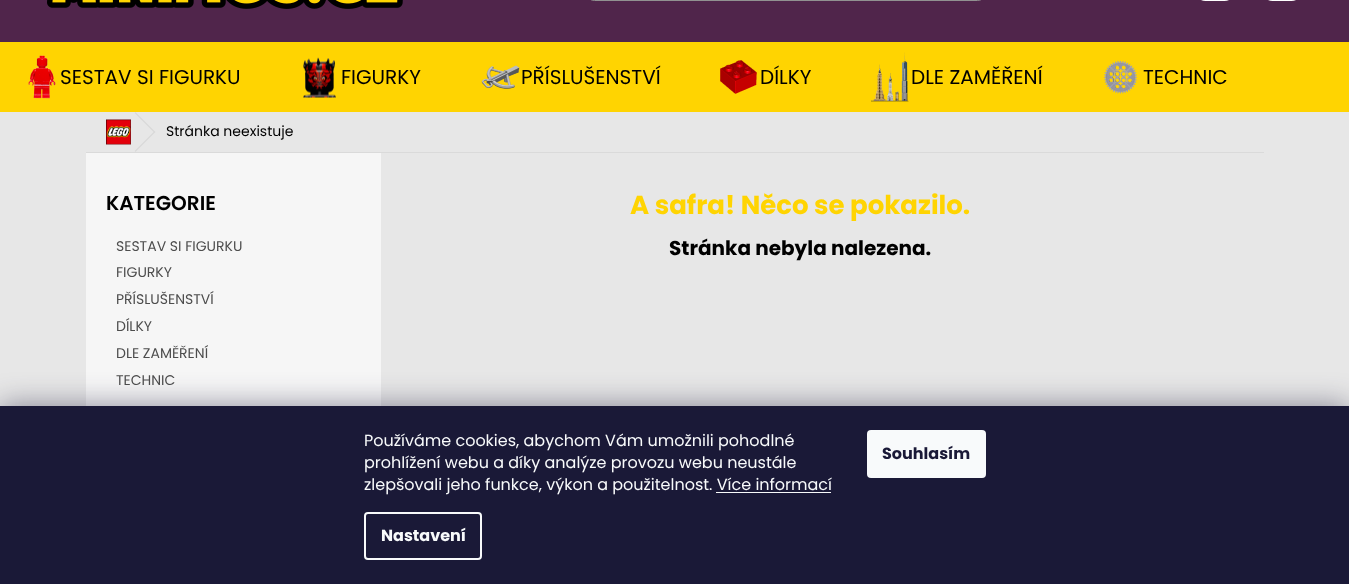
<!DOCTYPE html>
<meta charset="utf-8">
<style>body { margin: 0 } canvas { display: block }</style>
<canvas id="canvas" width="1349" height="584"></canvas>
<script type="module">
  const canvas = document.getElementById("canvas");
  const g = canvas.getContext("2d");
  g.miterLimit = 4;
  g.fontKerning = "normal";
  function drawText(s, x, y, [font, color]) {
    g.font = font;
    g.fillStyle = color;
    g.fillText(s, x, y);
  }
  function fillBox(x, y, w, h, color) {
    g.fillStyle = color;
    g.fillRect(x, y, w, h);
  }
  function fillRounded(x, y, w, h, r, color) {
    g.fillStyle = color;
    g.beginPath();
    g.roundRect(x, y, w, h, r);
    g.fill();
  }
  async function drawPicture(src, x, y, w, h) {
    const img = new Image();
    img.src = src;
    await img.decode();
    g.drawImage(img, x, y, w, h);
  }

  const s1 = ["20px Poppins", "#000000"];
  const s2 = ["14px Poppins", "#000000"];
  const s3 = ["600 20px Poppins", "#000000"];
  const s4 = ["14px Poppins", "#4D4D4D"];
  const s5 = ["bold 26px Poppins", "#FFD401"];
  const s6 = ["bold 20px Poppins", "#000000"];
  const s7 = ["16px Poppins", "#F8FAFB"];
  const s8 = ["bold 16px Poppins", "#F8FAFB"];
  const s9 = ["bold 16px Poppins", "#1A1937"];

  fillBox(0, 0, 1349, 584, "#E7E7E7");
  fillBox(0, 0, 1349, 42, "#50254B");
  g.beginPath();
  g.roundRect(586.5, -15.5, 399, 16, 14.5);
  g.strokeStyle = "#919191";
  g.stroke();
  fillRounded(1195, -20, 40, 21, 20, "#FFFFFF");
  fillRounded(1262, -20, 40, 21, 20, "#FFFFFF");
  await drawPicture("pic1.png", 47, 0, 356, 9);
  fillBox(0, 42, 1349, 70, "#FFD401");
  await drawPicture("pic2.png", 28, 55, 28, 44);
  drawText("SESTAV SI FIGURKU", 60, 84, s1);
  await drawPicture("pic3.png", 303, 57, 33, 41);
  drawText("FIGURKY", 341, 84, s1);
  await drawPicture("pic4.png", 481, 65, 39, 24);
  drawText("PŘÍSLUŠENSTVÍ", 521, 84, s1);
  await drawPicture("pic5.png", 720, 60, 37, 34);
  drawText("DÍLKY", 760, 84, s1);
  await drawPicture("pic6.png", 871, 52, 38, 50);
  drawText("DLE ZAMĚŘENÍ", 911, 84, s1);
  await drawPicture("pic7.png", 1103, 60, 34, 34);
  drawText("TECHNIC", 1143, 84, s1);
  fillBox(86, 152, 1178, 1, "#DADADA");
  await drawPicture("pic8.png", 106, 119, 25, 26);
  g.beginPath();
  g.moveTo(134.5, 113);
  g.lineTo(135.5, 112);
  g.lineTo(155.5, 132);
  g.lineTo(154.5, 133);
  g.closePath();
  g.fill();
  g.beginPath();
  g.moveTo(154.5, 131);
  g.lineTo(155.5, 132);
  g.lineTo(135.5, 152);
  g.lineTo(134.5, 151);
  g.closePath();
  g.fill();
  drawText("Stránka neexistuje", 166, 136, s2);
  fillBox(86, 153, 295, 253, "#F6F6F6");
  drawText("KATEGORIE", 106, 210, s3);
  drawText("SESTAV SI FIGURKU", 116, 251, s4);
  drawText("FIGURKY", 116, 277, s4);
  drawText("PŘÍSLUŠENSTVÍ", 116, 304, s4);
  drawText("DÍLKY", 116, 331, s4);
  drawText("DLE ZAMĚŘENÍ", 116, 358, s4);
  drawText("TECHNIC", 116, 385, s4);
  drawText("A safra! Něco se pokazilo.", 630, 214, s5);
  drawText("Stránka nebyla nalezena.", 669, 255, s6);
  g.fillStyle = "rgba(27, 25, 57, 0.5)";
  g.filter = "blur(15px)";
  g.beginPath();
  g.rect(0, 406, 1349, 178);
  g.fill();
  g.filter = "none";
  fillBox(0, 406, 1349, 178, "#1A1937");
  drawText("Používáme cookies, abychom Vám umožnili pohodlné", 364, 446, s7);
  drawText("prohlížení webu a díky analýze provozu webu neustále", 364, 468, s7);
  drawText("zlepšovali jeho funkce, výkon a použitelnost. Více informací", 364, 490, s7);
  fillBox(716, 492, 115, 1, "#F8FAFB");
  g.beginPath();
  g.roundRect(365, 513, 116, 46, 3);
  g.strokeStyle = "#F8FAFB";
  g.lineWidth = 2;
  g.stroke();
  drawText("Nastavení", 381, 541, s8);
  fillRounded(867, 430, 119, 48, 4, "#F8FAFB");
  drawText("Souhlasím", 882, 459, s9);
</script>
